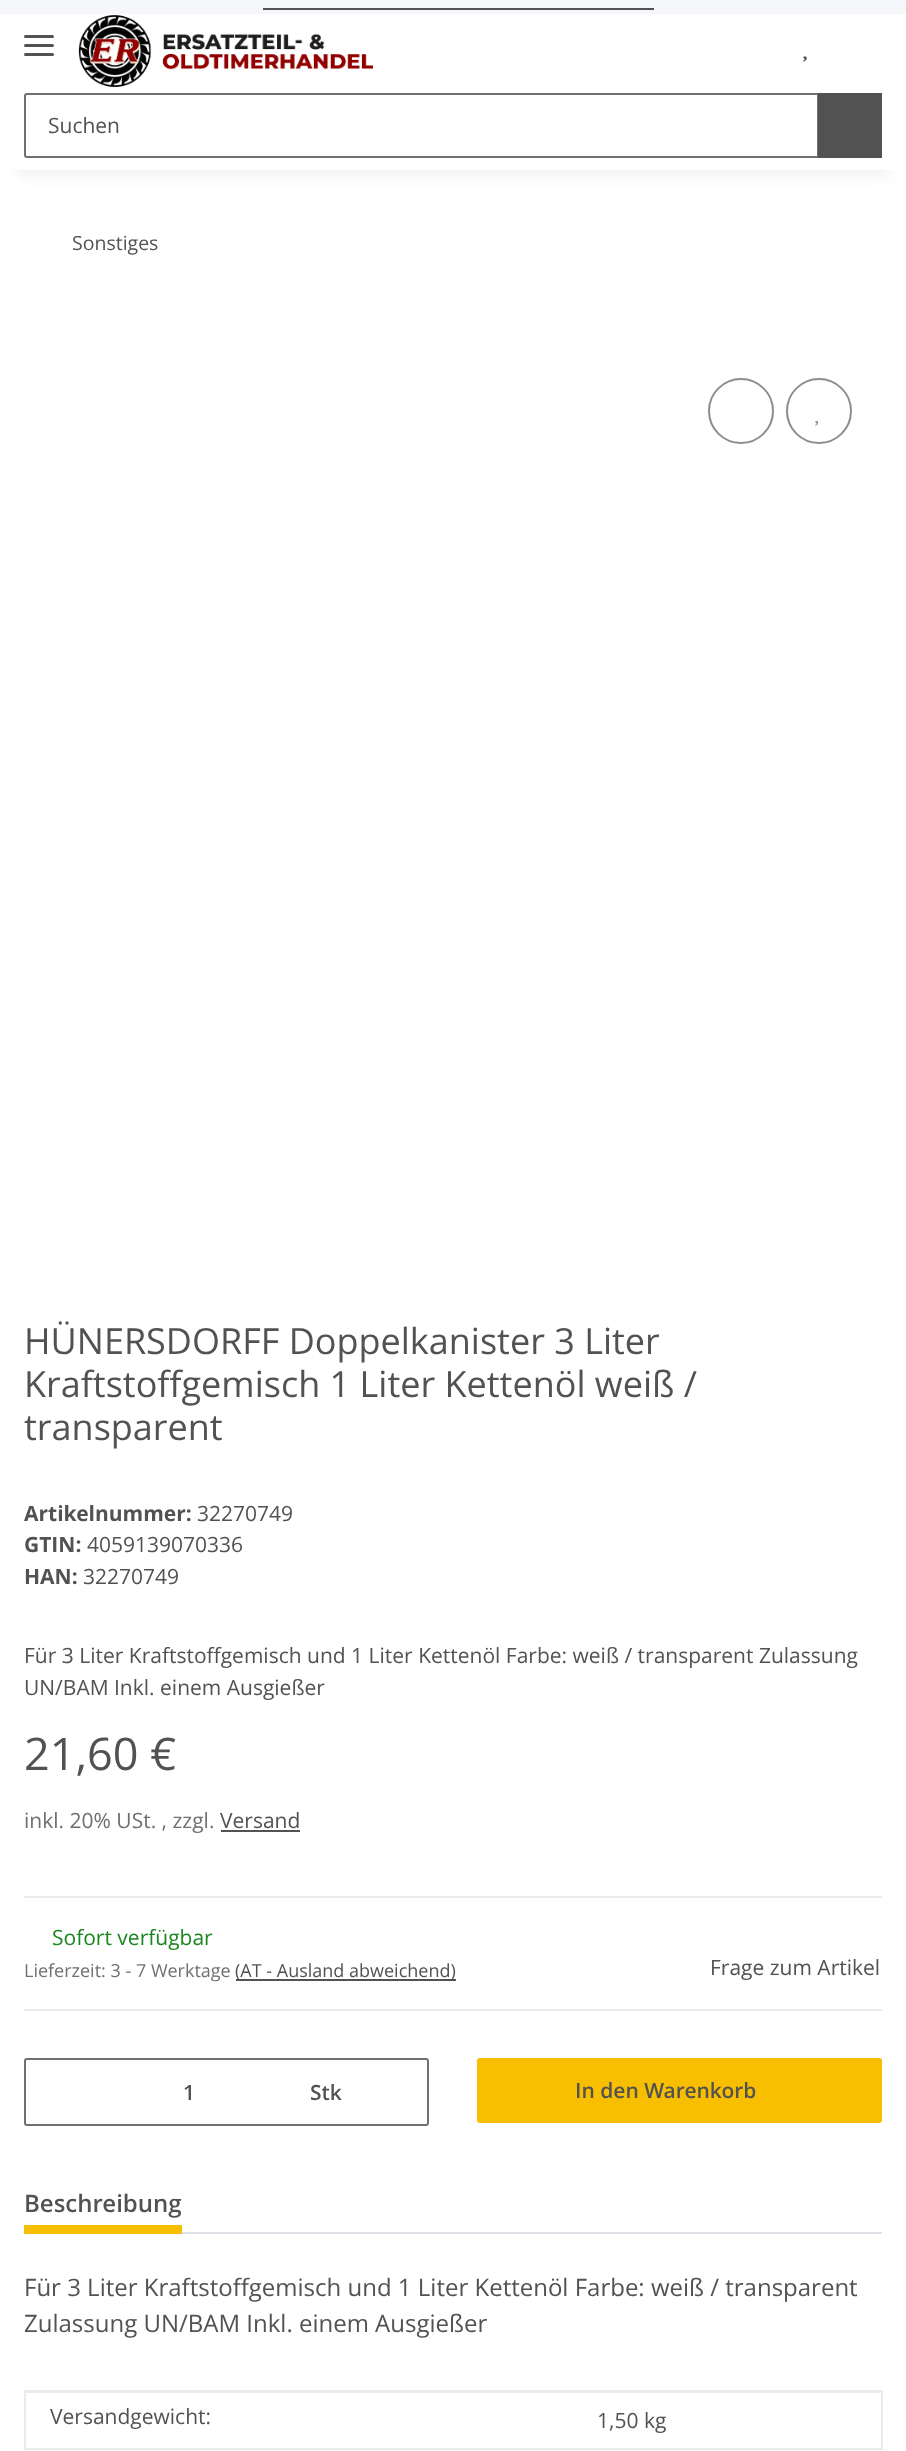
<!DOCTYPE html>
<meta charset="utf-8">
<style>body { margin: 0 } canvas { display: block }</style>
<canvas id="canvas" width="906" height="2451"></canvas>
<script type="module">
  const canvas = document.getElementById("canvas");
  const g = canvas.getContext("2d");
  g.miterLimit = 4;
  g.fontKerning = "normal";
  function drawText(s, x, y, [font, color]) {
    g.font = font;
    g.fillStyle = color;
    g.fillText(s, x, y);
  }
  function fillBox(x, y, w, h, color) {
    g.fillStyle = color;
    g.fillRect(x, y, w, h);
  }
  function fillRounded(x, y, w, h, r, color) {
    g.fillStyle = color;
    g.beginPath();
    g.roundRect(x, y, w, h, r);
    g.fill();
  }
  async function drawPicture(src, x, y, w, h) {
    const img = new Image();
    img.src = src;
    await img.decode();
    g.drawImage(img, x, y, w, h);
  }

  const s1 = ["21px Open Sans", "#525252"];
  const s2 = ["19.5px Open Sans", "#525252"];
  const s3 = ["36px Open Sans", "#525252"];
  const s4 = ["bold 21px Open Sans", "#525252"];
  const s5 = ["45px Open Sans", "#525252"];
  const s6 = ["21px Open Sans", "#707070"];
  const s7 = ["21px Open Sans", "#1C871E"];
  const s8 = ["18px Open Sans", "#707070"];
  const s9 = ["18px Open Sans", "#525252"];
  const s10 = ["600 21px Open Sans", "#525252"];
  const s11 = ["600 24px Open Sans", "#525252"];
  const s12 = ["24px Open Sans", "#525252"];

  fillBox(0, 0, 906, 2451, "#F5F7FA");
  fillBox(263, 8, 391, 2, "#525252");
  fillBox(0, 170, 906, 2281, "#FFFFFF");
  g.fillStyle = "rgba(0, 0, 0, 0.06)";
  g.filter = "blur(7px)";
  g.beginPath();
  g.rect(18, 56, 870, 120);
  g.fill();
  g.filter = "none";
  fillBox(0, 14, 906, 156, "#FFFFFF");
  fillRounded(24, 44, 30, 3, 1.5, "#525252");
  fillRounded(24, 35, 30, 3, 1.5, "#525252");
  fillRounded(24, 53, 30, 3, 1.5, "#525252");
  await drawPicture("pic1.png", 78, 15, 295, 73);
  await drawPicture("pic2.png", 803, 56, 4, 6);
  g.beginPath();
  g.roundRect(25, 94, 793, 63, [2, 0, 0, 2]);
  g.strokeStyle = "#707070";
  g.lineWidth = 2;
  g.stroke();
  drawText("Suchen", 48, 133, s1);
  fillBox(818, 93, 64, 65, "#525252");
  drawText("Sonstiges", 72, 250, s2);
  g.beginPath();
  g.arc(741, 411, 32, 0, Math.PI * 2);
  g.strokeStyle = "#8D8D8D";
  g.stroke();
  g.beginPath();
  g.arc(819, 411, 32, 0, Math.PI * 2);
  g.stroke();
  await drawPicture("pic3.png", 815, 420, 4, 6);
  drawText("HÜNERSDORFF Doppelkanister 3 Liter", 24, 1354, s3);
  drawText("Kraftstoffgemisch 1 Liter Kettenöl weiß /", 24, 1397, s3);
  drawText("transparent", 24, 1440, s3);
  drawText("Artikelnummer:", 24, 1521, s4);
  drawText("32270749", 197, 1521, s1);
  drawText("GTIN:", 24, 1552, s4);
  drawText("4059139070336", 87, 1552, s1);
  drawText("HAN:", 24, 1584, s4);
  drawText("32270749", 83, 1584, s1);
  drawText("Für 3 Liter Kraftstoffgemisch und 1 Liter Kettenöl Farbe: weiß / transparent Zulassung", 24, 1663, s1);
  drawText("UN/BAM Inkl. einem Ausgießer", 24, 1695, s1);
  drawText("21,60 €", 24, 1770, s5);
  drawText("inkl. 20% USt. , zzgl.", 24, 1828, s6);
  drawText("Versand", 220, 1828, s1);
  fillBox(221, 1830, 79, 2, "#525252");
  fillBox(24, 1896, 858, 2, "#EBEBEB");
  fillBox(24, 2009, 858, 2, "#EBEBEB");
  drawText("Sofort verfügbar", 52, 1945, s7);
  drawText("Lieferzeit: 3 - 7 Werktage", 24, 1977, s8);
  fillBox(236, 1979, 220, 2, "#525252");
  drawText("(AT - Ausland abweichend)", 235, 1977, s9);
  drawText("Frage zum Artikel", 710, 1975, s1);
  g.beginPath();
  g.roundRect(25, 2059, 403, 66, 2);
  g.strokeStyle = "#707070";
  g.stroke();
  drawText("1", 183, 2100, s10);
  drawText("Stk", 310, 2100, s10);
  g.fillStyle = "#F8BF00";
  g.beginPath();
  g.roundRect(478, 2059, 403, 63, 2);
  g.fill();
  g.strokeStyle = "#F8BF00";
  g.stroke();
  drawText("In den Warenkorb", 575, 2098, s10);
  fillBox(182, 2232, 700, 2, "#DEE2E6");
  drawText("Beschreibung", 24, 2212, s11);
  fillBox(24, 2225, 158, 9, "#F8BF00");
  drawText("Für 3 Liter Kraftstoffgemisch und 1 Liter Kettenöl Farbe: weiß / transparent", 24, 2296, s12);
  drawText("Zulassung UN/BAM Inkl. einem Ausgießer", 24, 2332, s12);
  fillBox(24, 2392, 858, 1, "#EBEBEB");
  fillBox(881, 2391, 2, 59, "#EBEBEB");
  fillBox(24, 2448, 858, 2, "#EBEBEB");
  fillBox(24, 2391, 2, 59, "#EBEBEB");
  fillBox(24, 2390, 858, 2, "#EBEBEB");
  fillBox(882, 2390, 1, 3, "#EBEBEB");
  drawText("Versandgewicht:", 50, 2424, s1);
  drawText("1,50 kg", 597, 2428, s1);
</script>
